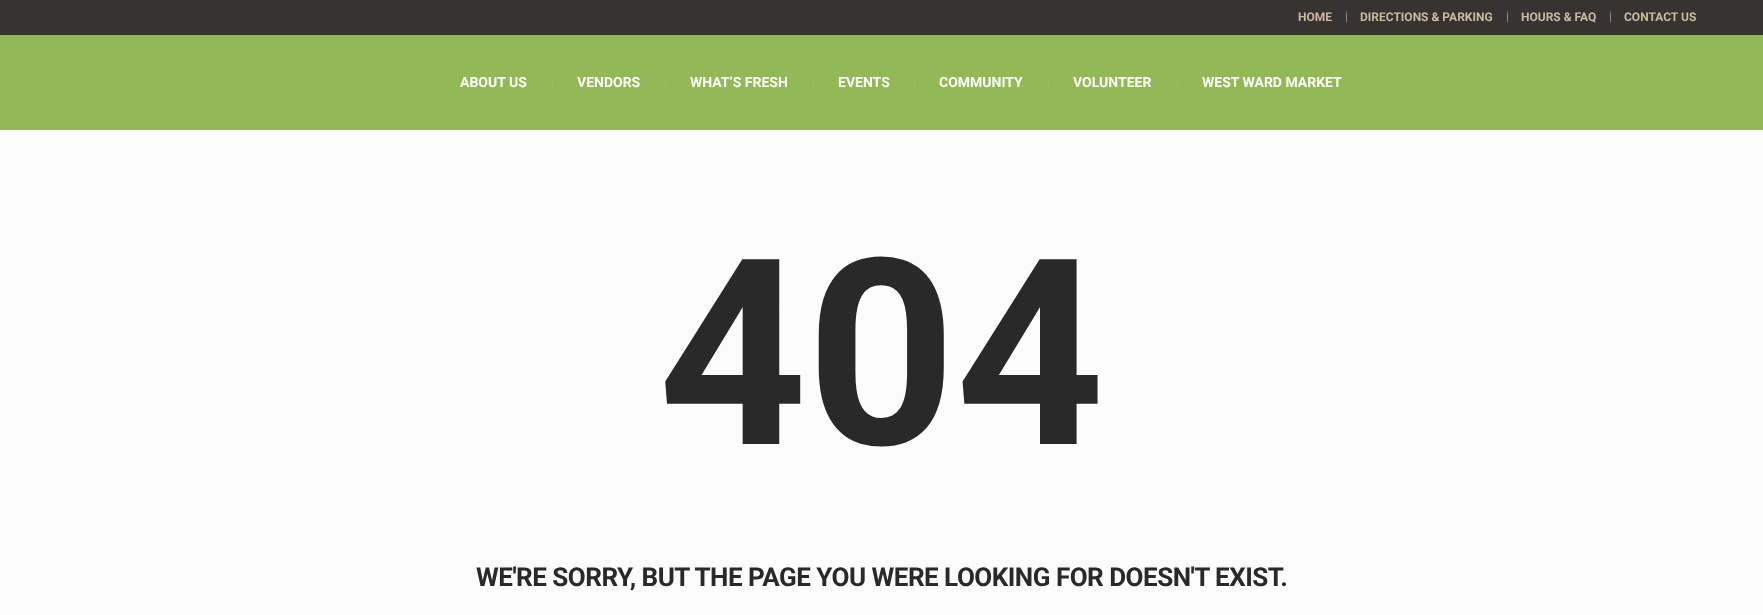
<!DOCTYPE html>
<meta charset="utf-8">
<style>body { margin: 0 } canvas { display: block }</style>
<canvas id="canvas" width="1763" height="615"></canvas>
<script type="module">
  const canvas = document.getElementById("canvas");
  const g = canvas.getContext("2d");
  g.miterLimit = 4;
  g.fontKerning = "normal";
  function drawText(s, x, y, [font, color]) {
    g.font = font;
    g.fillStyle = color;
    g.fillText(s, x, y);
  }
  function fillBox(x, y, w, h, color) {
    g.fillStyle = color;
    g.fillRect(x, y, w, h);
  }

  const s1 = ["bold 12px Roboto", "#CDBA9E"];
  const s2 = ["bold 14px Roboto", "#FFFFFF"];
  const s3 = ["bold 260px Roboto", "#292929"];
  const s4 = ["bold 26px Roboto", "#292929"];

  fillBox(0, 0, 1763, 615, "#FCFCFC");
  fillBox(0, 0, 1763, 35, "#373333");
  drawText("HOME", 1298, 21, s1);
  g.fillStyle = "#978D77";
  g.beginPath();
  g.ellipse(1346.5, 17, 0.5, 6, 0, 0, Math.PI * 2);
  g.fill();
  drawText("DIRECTIONS & PARKING", 1360, 21, s1);
  g.fillStyle = "#978D77";
  g.beginPath();
  g.ellipse(1507.5, 17, 0.5, 6, 0, 0, Math.PI * 2);
  g.fill();
  drawText("HOURS & FAQ", 1521, 21, s1);
  g.fillStyle = "#978D77";
  g.beginPath();
  g.ellipse(1610.5, 17, 0.5, 6, 0, 0, Math.PI * 2);
  g.fill();
  drawText("CONTACT US", 1624, 21, s1);
  fillBox(0, 35, 1763, 94, "#92B955");
  fillBox(0, 129, 1763, 1, "#A0BC65");
  drawText("ABOUT US", 460, 87, s2);
  g.fillStyle = "#A0BC65";
  g.beginPath();
  g.ellipse(552.5, 82, 0.5, 6, 0, 0, Math.PI * 2);
  g.fill();
  drawText("VENDORS", 577, 87, s2);
  g.fillStyle = "#A0BC65";
  g.beginPath();
  g.ellipse(665.5, 82, 0.5, 6, 0, 0, Math.PI * 2);
  g.fill();
  drawText("WHAT’S FRESH", 690, 87, s2);
  g.fillStyle = "#A0BC65";
  g.beginPath();
  g.ellipse(813.5, 82, 0.5, 6, 0, 0, Math.PI * 2);
  g.fill();
  drawText("EVENTS", 838, 87, s2);
  g.fillStyle = "#A0BC65";
  g.beginPath();
  g.ellipse(914.5, 82, 0.5, 6, 0, 0, Math.PI * 2);
  g.fill();
  drawText("COMMUNITY", 939, 87, s2);
  g.fillStyle = "#A0BC65";
  g.beginPath();
  g.ellipse(1048.5, 82, 0.5, 6, 0, 0, Math.PI * 2);
  g.fill();
  drawText("VOLUNTEER", 1073, 87, s2);
  g.fillStyle = "#A0BC65";
  g.beginPath();
  g.ellipse(1177.5, 82, 0.5, 6, 0, 0, Math.PI * 2);
  g.fill();
  drawText("WEST WARD MARKET", 1202, 87, s2);
  g.letterSpacing = "-0.5px";
  drawText("404", 658, 444, s3);
  drawText("WE'RE SORRY, BUT THE PAGE YOU WERE LOOKING FOR DOESN'T EXIST.", 476, 586, s4);
</script>
